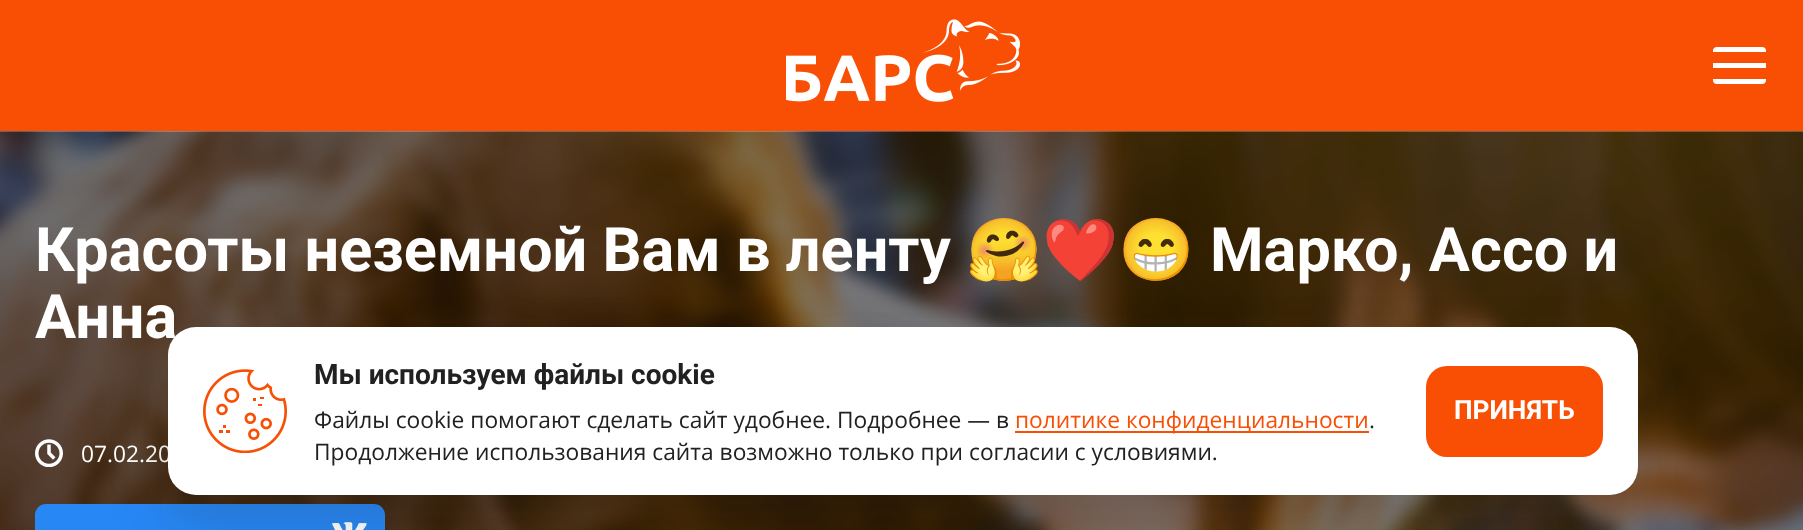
<!DOCTYPE html>
<meta charset="utf-8">
<style>body { margin: 0 } canvas { display: block }</style>
<canvas id="canvas" width="1803" height="530"></canvas>
<script type="module">
  const canvas = document.getElementById("canvas");
  const g = canvas.getContext("2d");
  g.miterLimit = 4;
  g.fontKerning = "normal";
  function drawText(s, x, y, [font, color]) {
    g.font = font;
    g.fillStyle = color;
    g.fillText(s, x, y);
  }
  function fillBox(x, y, w, h, color) {
    g.fillStyle = color;
    g.fillRect(x, y, w, h);
  }
  function fillRounded(x, y, w, h, r, color) {
    g.fillStyle = color;
    g.beginPath();
    g.roundRect(x, y, w, h, r);
    g.fill();
  }
  async function drawPicture(src, x, y, w, h) {
    const img = new Image();
    img.src = src;
    await img.decode();
    g.drawImage(img, x, y, w, h);
  }

  const s1 = ["bold 61.25px Roboto", "#FFFFFF"];
  const s2 = ["bold 61.25px Noto Color Emoji", "#FFFFFF"];
  const s3 = ["22.75px Open Sans", "#FFFFFF"];
  const s4 = ["bold 28px Roboto", "#212121"];
  const s5 = ["22.75px Open Sans", "#212121"];
  const s6 = ["22.75px Open Sans", "#F84F05"];
  const s7 = ["bold 26.25px Roboto", "#FFFFFF"];

  fillBox(0, 0, 1803, 530, "#FFFFFF");
  fillBox(0, 0, 1803, 131, "#F84F05");
  await drawPicture("pic1.png", 786, 19, 234, 83);
  g.fillStyle = "#FFFFFF";
  g.beginPath();
  g.roundRect(1713, 47, 53, 5, [4, 4, 0, 0]);
  g.fill();
  fillBox(1713, 63, 53, 5, "#FFFFFF");
  g.beginPath();
  g.roundRect(1713, 79, 53, 5, [0, 0, 4, 4]);
  g.fill();
  await drawPicture("pic2.png", 0, 131, 1803, 399);
  drawText("Красоты неземной Вам в ленту", 35, 271, s1);
  drawText("🤗❤️😁", 966, 271, s2);
  drawText("Марко, Ассо и", 1210, 271, s1);
  drawText("Анна", 35, 338, s1);
  await drawPicture("pic3.png", 35, 439, 28, 28);
  drawText("07.02.20", 81, 462, s3);
  fillRounded(35, 504, 350, 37, 11, "#2787F5");
  await drawPicture("pic4.png", 332, 522, 35, 8);
  g.fillStyle = "rgba(33, 33, 33, 0.18)";
  g.filter = "blur(28px)";
  g.beginPath();
  g.roundRect(168, 355, 1470, 168, 28);
  g.fill();
  g.filter = "none";
  fillRounded(168, 327, 1470, 168, 28, "#FFFFFF");
  await drawPicture("pic5.png", 203, 369, 84, 84);
  drawText("Мы используем файлы cookie", 314, 384, s4);
  drawText("Файлы cookie помогают сделать сайт удобнее. Подробнее — в", 314, 428, s5);
  fillBox(1015, 431, 354, 2, "#F84F05");
  drawText("политике конфиденциальности", 1015, 428, s6);
  drawText(".", 1369, 428, s5);
  drawText("Продолжение использования сайта возможно только при согласии с условиями.", 314, 460, s5);
  fillRounded(1426, 366, 177, 91, 21, "#F84F05");
  drawText("ПРИНЯТЬ", 1454, 419, s7);
</script>
